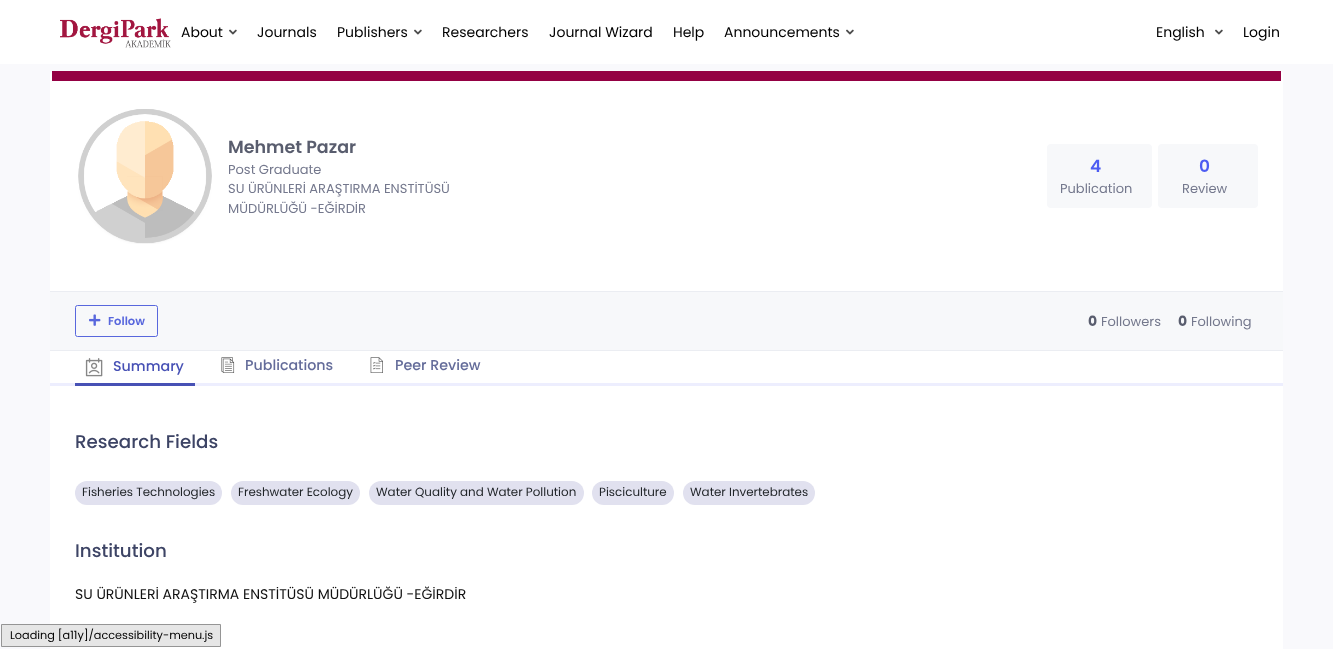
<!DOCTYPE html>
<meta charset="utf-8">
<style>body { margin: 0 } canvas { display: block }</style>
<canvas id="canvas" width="1333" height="649"></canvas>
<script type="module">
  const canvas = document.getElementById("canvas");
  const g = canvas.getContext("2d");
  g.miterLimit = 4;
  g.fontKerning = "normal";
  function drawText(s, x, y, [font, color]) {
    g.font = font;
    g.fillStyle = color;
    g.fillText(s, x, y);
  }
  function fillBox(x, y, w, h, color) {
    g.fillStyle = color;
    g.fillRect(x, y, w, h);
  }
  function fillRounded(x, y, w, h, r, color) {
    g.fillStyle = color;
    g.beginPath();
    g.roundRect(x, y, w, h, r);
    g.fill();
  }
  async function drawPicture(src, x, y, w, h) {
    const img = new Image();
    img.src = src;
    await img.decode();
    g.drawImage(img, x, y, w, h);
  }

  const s1 = ["14px Poppins", "#000000"];
  const s2 = ["600 17.5px Poppins", "#595D6E"];
  const s3 = ["13px Poppins", "#74788D"];
  const s4 = ["600 17px Poppins", "#4D5CF2"];
  const s5 = ["600 11.5px Poppins", "#5867DD"];
  const s6 = ["bold 14px Poppins", "#595D6E"];
  const s7 = ["500 14.25px Poppins", "#4751B5"];
  const s8 = ["500 14.25px Poppins", "#646C9A"];
  const s9 = ["500 18.25px Poppins", "#3D4465"];
  const s10 = ["11.9px Poppins", "#212529"];
  const s11 = ["14px Poppins", "#111111"];
  const s12 = ["11.25px Poppins", "#000000"];

  fillBox(0, 0, 1333, 649, "#F9F9FC");
  fillBox(0, 0, 1333, 64, "#FFFFFF");
  await drawPicture("pic1.png", 60, 18, 111, 30);
  drawText("About", 181, 37, s1);
  await drawPicture("pic2.png", 229, 29, 8, 6);
  drawText("Journals", 257, 37, s1);
  drawText("Publishers", 337, 37, s1);
  await drawPicture("pic2.png", 414, 29, 8, 6);
  drawText("Researchers", 442, 37, s1);
  drawText("Journal Wizard", 549, 37, s1);
  drawText("Help", 673, 37, s1);
  drawText("Announcements", 724, 37, s1);
  await drawPicture("pic2.png", 846, 29, 8, 6);
  drawText("English", 1156, 37, s1);
  await drawPicture("pic2.png", 1215, 29, 8, 6);
  drawText("Login", 1243, 37, s1);
  fillRounded(50, 71, 1233, 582, 4, "#FFFFFF");
  fillBox(52, 71, 1229, 10, "#940043");
  await drawPicture("pic3.png", 78, 109, 134, 135);
  drawText("Mehmet Pazar", 228, 153, s2);
  drawText("Post Graduate", 228, 174, s3);
  drawText("SU ÜRÜNLERİ ARAŞTIRMA ENSTİTÜSÜ", 228, 193, s3);
  drawText("MÜDÜRLÜĞÜ -EĞİRDİR", 228, 213, s3);
  fillRounded(1047, 144, 105, 64, 4, "#F7F8FA");
  drawText("4", 1090, 172, s4);
  drawText("Publication", 1060, 193, s3);
  fillRounded(1158, 144, 100, 64, 4, "#F7F8FA");
  drawText("0", 1199, 172, s4);
  drawText("Review", 1182, 193, s3);
  fillBox(50, 291, 1233, 1, "#EBEDF2");
  fillBox(50, 292, 1233, 58, "#F7F8FA");
  g.beginPath();
  g.roundRect(75.5, 305.5, 82, 31, 2);
  g.strokeStyle = "#5867DD";
  g.stroke();
  await drawPicture("pic4.png", 89, 314, 12, 12);
  drawText("Follow", 108, 325, s5);
  drawText("0", 1088, 326, s6);
  drawText("Followers", 1101, 326, s3);
  drawText("0", 1178, 326, s6);
  drawText("Following", 1191, 326, s3);
  fillBox(50, 350, 1233, 1, "#EBEDF2");
  fillBox(50, 383, 1233, 3, "rgba(77, 92, 242, 0.1)");
  fillBox(75, 383, 120, 3, "#4751B5");
  await drawPicture("pic5.png", 85, 358, 18, 19);
  drawText("Summary", 113, 371, s7);
  await drawPicture("pic6.png", 221, 357, 14, 16);
  drawText("Publications", 245, 370, s8);
  await drawPicture("pic7.png", 370, 357, 13, 16);
  drawText("Peer Review", 395, 370, s8);
  drawText("Research Fields", 75, 448, s9);
  fillRounded(75, 481, 147, 24, 12, "#E1E1EF");
  drawText("Fisheries Technologies", 82, 496, s10);
  fillRounded(231, 481, 129, 24, 12, "#E1E1EF");
  drawText("Freshwater Ecology", 238, 496, s10);
  fillRounded(369, 481, 215, 24, 12, "#E1E1EF");
  drawText("Water Quality and Water Pollution", 376, 496, s10);
  fillRounded(592, 481, 82, 24, 12, "#E1E1EF");
  drawText("Pisciculture", 599, 496, s10);
  fillRounded(683, 481, 132, 24, 12, "#E1E1EF");
  drawText("Water Invertebrates", 690, 496, s10);
  drawText("Institution", 75, 557, s9);
  drawText("SU ÜRÜNLERİ ARAŞTIRMA ENSTİTÜSÜ MÜDÜRLÜĞÜ -EĞİRDİR", 75, 599, s11);
  g.fillStyle = "#E6E6E6";
  g.beginPath();
  g.rect(1.5, 624.5, 219, 22);
  g.fill();
  g.strokeStyle = "#959595";
  g.stroke();
  drawText("Loading [a11y]/accessibility-menu.js", 10, 639, s12);
</script>
